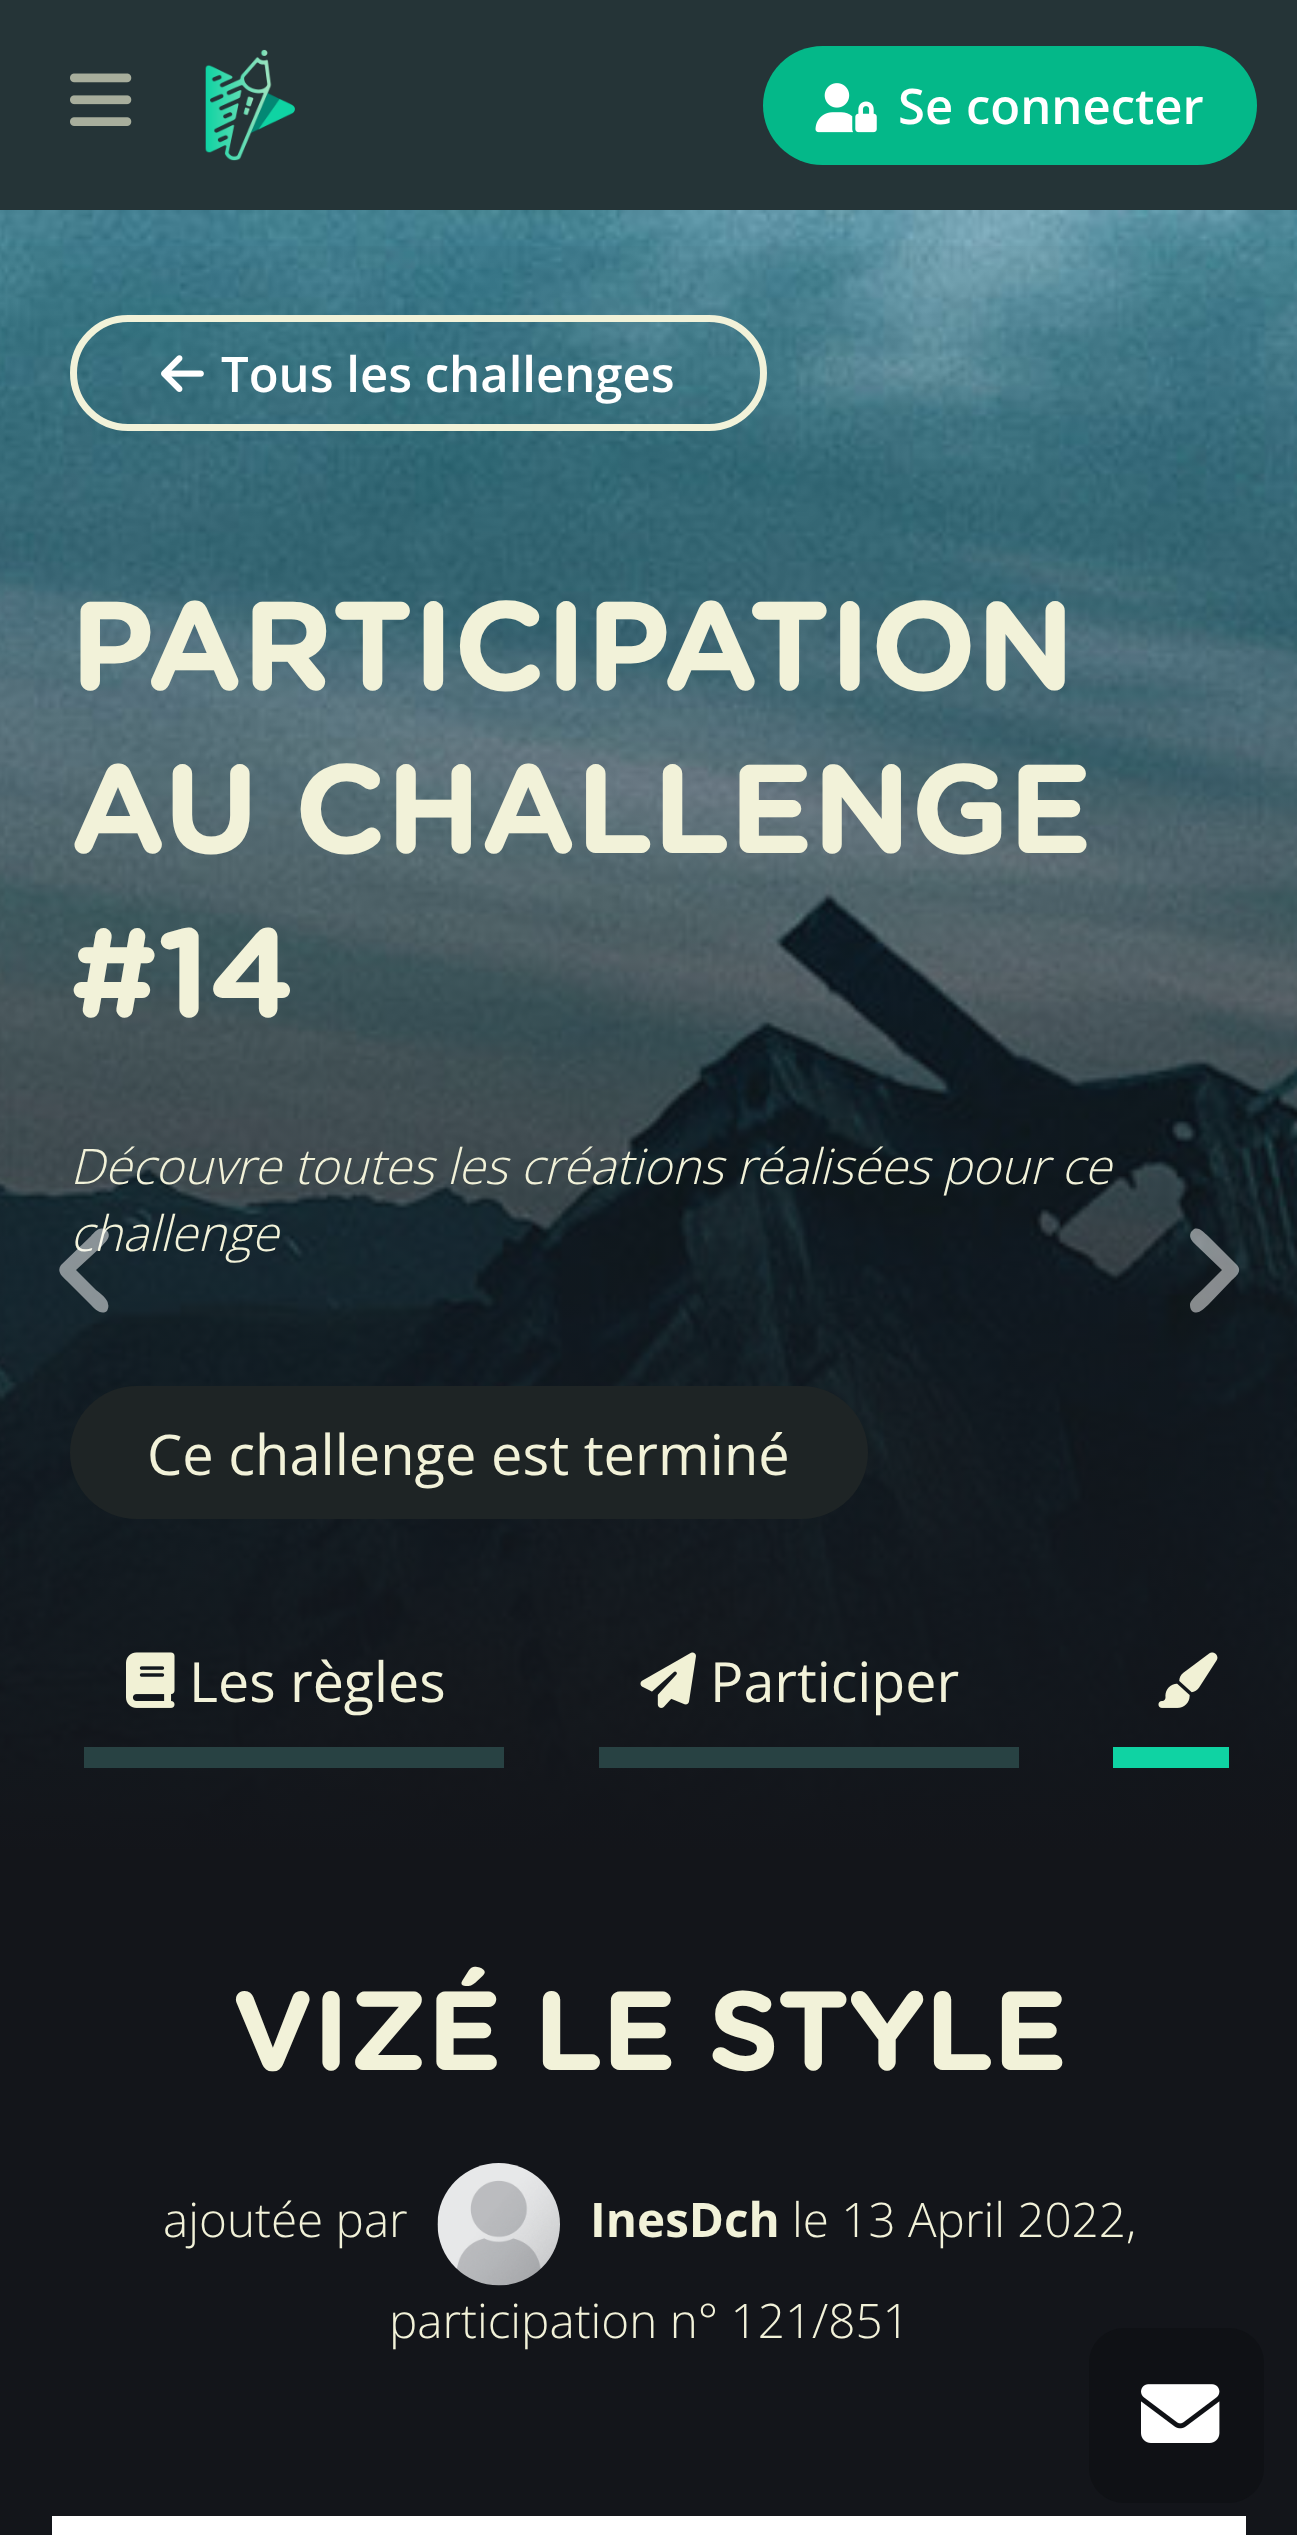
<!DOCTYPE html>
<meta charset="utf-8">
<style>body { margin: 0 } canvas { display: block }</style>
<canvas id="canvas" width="1297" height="2535"></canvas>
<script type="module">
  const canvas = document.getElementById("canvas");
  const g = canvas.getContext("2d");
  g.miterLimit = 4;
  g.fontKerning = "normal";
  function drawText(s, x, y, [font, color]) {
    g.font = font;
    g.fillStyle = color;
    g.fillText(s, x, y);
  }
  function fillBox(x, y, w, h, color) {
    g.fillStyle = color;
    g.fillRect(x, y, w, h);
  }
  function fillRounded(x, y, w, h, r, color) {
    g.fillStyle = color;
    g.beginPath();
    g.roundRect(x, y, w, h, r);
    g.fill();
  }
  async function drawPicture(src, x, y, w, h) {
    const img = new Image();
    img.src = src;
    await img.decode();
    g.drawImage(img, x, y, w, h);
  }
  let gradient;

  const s1 = ["600 49px Open Sans", "#FFFFFF"];
  const s2 = ["bold 126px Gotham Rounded", "#F2F2D9"];
  const s3 = ["italic 300 49px Open Sans", "#F2F2D9"];
  const s4 = ["56px Open Sans", "#F2F2D9"];
  const s5 = ["55.5px Open Sans", "#F2F2D9"];
  const s6 = ["bold 112px Gotham Rounded", "#F2F2D9"];
  const s7 = ["300 47.6px Open Sans", "#F2F2D9"];
  const s8 = ["bold 47.6px Open Sans", "#F2F2D9"];

  fillBox(0, 0, 1297, 2535, "#13151A");
  fillBox(0, 0, 1297, 210, "#253437");
  await drawPicture("pic1.png", 70, 73, 62, 53);
  await drawPicture("pic2.png", 205, 49, 90, 112);
  fillRounded(763, 46, 494, 119, 59.5, "#04B889");
  await drawPicture("pic3.png", 815, 83, 62, 50);
  drawText("Se connecter", 898, 124, s1);
  await drawPicture("pic4.png", 0, 210, 1297, 1639);
  gradient = g.createLinearGradient(649, 1859, 649, 210);
  gradient.addColorStop(0, "#13151A");
  gradient.addColorStop(1, "rgba(19, 21, 26, 0)");
  g.fillStyle = gradient;
  g.fillRect(0, 246, 1297, 1603);
  g.beginPath();
  g.roundRect(73.5, 318.5, 690, 109, 54.5);
  g.strokeStyle = "#F2F2D9";
  g.lineWidth = 7;
  g.stroke();
  await drawPicture("pic5.png", 161, 355, 43, 37);
  drawText("Tous les challenges", 221, 392, s1);
  g.letterSpacing = "-1.25px";
  drawText("PARTICIPATION", 70, 690, s2);
  drawText("AU CHALLENGE", 70, 853, s2);
  drawText("#14", 70, 1017, s2);
  g.letterSpacing = "0px";
  drawText("Découvre toutes les créations réalisées pour ce", 70, 1184, s3);
  drawText("challenge", 70, 1251, s3);
  fillRounded(70, 1386, 798, 133, 66.5, "#1E2425");
  drawText("Ce challenge est terminé", 147, 1475, s4);
  await drawPicture("pic6.png", 126, 1652, 49, 56);
  drawText("Les règles", 189, 1702, s5);
  fillBox(84, 1747, 420, 21, "#284243");
  await drawPicture("pic7.png", 640, 1652, 56, 56);
  drawText("Participer", 710, 1702, s5);
  fillBox(599, 1747, 420, 21, "#284243");
  await drawPicture("pic8.png", 1158, 1652, 60, 56);
  fillBox(1113, 1747, 116, 21, "#0FD3A3");
  g.fillStyle = "rgba(255, 255, 255, 0.5)";
  g.beginPath();
  g.moveTo(61, 1265);
  g.bezierCurveTo(56, 1272, 63, 1277, 67, 1281);
  g.lineTo(91, 1305);
  g.bezierCurveTo(94, 1308, 101, 1316, 107, 1311);
  g.bezierCurveTo(108, 1309, 109, 1306, 108, 1304);
  g.bezierCurveTo(108, 1299, 100, 1293, 96, 1290);
  g.lineTo(76, 1270);
  g.lineTo(102, 1246);
  g.bezierCurveTo(105, 1242, 111, 1238, 108, 1232);
  g.bezierCurveTo(107, 1231, 106, 1230, 104, 1229);
  g.bezierCurveTo(98, 1227, 94, 1233, 91, 1236);
  g.closePath();
  g.fill();
  g.beginPath();
  g.moveTo(1237, 1265);
  g.bezierCurveTo(1243, 1272, 1235, 1277, 1231, 1281);
  g.lineTo(1208, 1305);
  g.bezierCurveTo(1204, 1308, 1198, 1316, 1192, 1311);
  g.bezierCurveTo(1190, 1309, 1190, 1306, 1190, 1304);
  g.bezierCurveTo(1191, 1299, 1199, 1293, 1202, 1290);
  g.lineTo(1222, 1270);
  g.lineTo(1197, 1246);
  g.bezierCurveTo(1193, 1242, 1188, 1238, 1191, 1232);
  g.bezierCurveTo(1192, 1231, 1193, 1230, 1194, 1229);
  g.bezierCurveTo(1200, 1227, 1204, 1233, 1208, 1236);
  g.closePath();
  g.fill();
  g.letterSpacing = "-1.1px";
  drawText("VIZÉ LE STYLE", 232, 2070, s6);
  g.letterSpacing = "0px";
  drawText("ajoutée par", 163, 2237, s7);
  await drawPicture("pic9.png", 437, 2163, 123, 123);
  drawText("InesDch", 590, 2237, s8);
  drawText("le 13 April 2022,", 792, 2237, s7);
  drawText("participation n° 121/851", 389, 2338, s7);
  fillBox(52, 2516, 1194, 19, "#FFFFFF");
  fillRounded(1089, 2328, 175, 175, 35, "#0F1115");
  await drawPicture("pic10.png", 1141, 2384, 79, 59);
</script>
